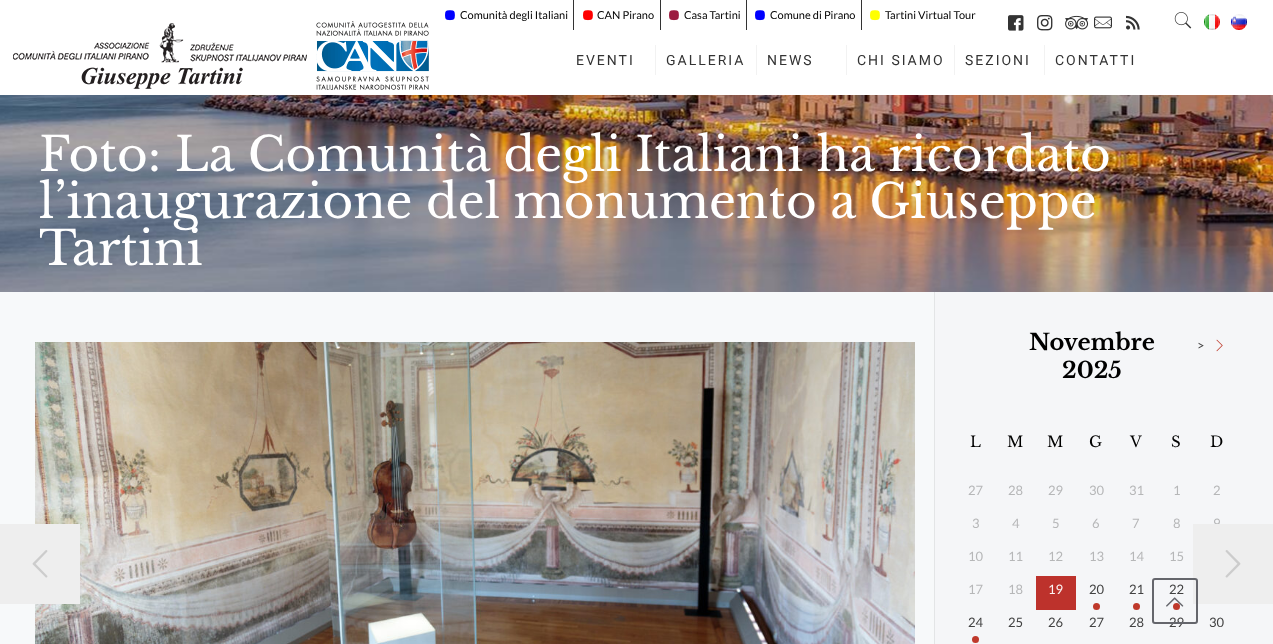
<!DOCTYPE html>
<meta charset="utf-8">
<style>body { margin: 0 } canvas { display: block }</style>
<canvas id="canvas" width="1273" height="644"></canvas>
<script type="module">
  const canvas = document.getElementById("canvas");
  const g = canvas.getContext("2d");
  g.miterLimit = 4;
  g.fontKerning = "normal";
  function drawText(s, x, y, [font, color]) {
    g.font = font;
    g.fillStyle = color;
    g.fillText(s, x, y);
  }
  function fillBox(x, y, w, h, color) {
    g.fillStyle = color;
    g.fillRect(x, y, w, h);
  }
  async function drawPicture(src, x, y, w, h) {
    const img = new Image();
    img.src = src;
    await img.decode();
    g.drawImage(img, x, y, w, h);
  }

  const s1 = ["11px Lato", "#000000"];
  const s2 = ["14px Roboto", "#333333"];
  const s3 = ["47px Libre Baskerville", "#FFFFFF"];
  const s4 = ["bold 22.5px Libre Baskerville", "#000000"];
  const s5 = ["13px Lato", "#424242"];
  const s6 = ["15px Libre Baskerville", "#000000"];
  const s7 = ["13px Lato", "#B6B7B8"];
  const s8 = ["13px Lato", "#FCF5F4"];

  fillBox(0, 0, 1273, 644, "#F7F9FA");
  fillBox(0, 0, 1273, 95, "#FFFFFF");
  fillBox(573, 0, 1, 30, "#333333");
  await drawPicture("pic1.png", 445, 10, 10, 11);
  drawText("Comunità degli Italiani", 460, 19, s1);
  fillBox(660, 0, 1, 30, "#333333");
  await drawPicture("pic2.png", 583, 10, 10, 11);
  drawText("CAN Pirano", 597, 19, s1);
  fillBox(746, 0, 1, 30, "#333333");
  await drawPicture("pic3.png", 669, 10, 10, 11);
  drawText("Casa Tartini", 684, 19, s1);
  fillBox(861, 0, 1, 30, "#333333");
  await drawPicture("pic1.png", 755, 10, 10, 11);
  drawText("Comune di Pirano", 770, 19, s1);
  await drawPicture("pic4.png", 870, 10, 10, 11);
  drawText("Tartini Virtual Tour", 885, 19, s1);
  await drawPicture("pic5.png", 1008, 15, 16, 16);
  await drawPicture("pic6.png", 1037, 15, 16, 16);
  await drawPicture("pic7.png", 1065, 15, 24, 15);
  await drawPicture("pic8.png", 1094, 16, 18, 13);
  await drawPicture("pic9.png", 1126, 15, 14, 15);
  await drawPicture("pic10.png", 1174, 12, 18, 17);
  await drawPicture("pic11.png", 1204, 14, 16, 16);
  await drawPicture("pic12.png", 1231, 14, 16, 16);
  await drawPicture("pic13.png", 13, 21, 416, 69);
  fillBox(655, 45, 1, 30, "#F2F2F2");
  g.letterSpacing = "2px";
  drawText("EVENTI", 576, 65, s2);
  fillBox(756, 45, 1, 30, "#F2F2F2");
  drawText("GALLERIA", 666, 65, s2);
  fillBox(846, 45, 1, 30, "#F2F2F2");
  drawText("NEWS", 767, 65, s2);
  fillBox(954, 45, 1, 30, "#F2F2F2");
  drawText("CHI SIAMO", 857, 65, s2);
  fillBox(1044, 45, 1, 30, "#F2F2F2");
  drawText("SEZIONI", 965, 65, s2);
  drawText("CONTATTI", 1055, 65, s2);
  await drawPicture("pic14.png", 0, 95, 1273, 197);
  g.letterSpacing = "0px";
  drawText("Foto: La Comunità degli Italiani ha ricordato", 39, 171, s3);
  drawText("l’inaugurazione del monumento a Giuseppe", 39, 218, s3);
  drawText("Tartini", 39, 265, s3);
  await drawPicture("pic15.png", 35, 342, 880, 302);
  fillBox(934, 292, 1, 352, "#E3E5E6");
  fillBox(935, 292, 338, 352, "#F5F6F8");
  drawText("Novembre", 1029, 350, s4);
  drawText("2025", 1062, 378, s4);
  g.letterSpacing = "1px";
  drawText(">", 1197, 350, s5);
  await drawPicture("pic16.png", 1216, 339, 7, 13);
  g.letterSpacing = "0px";
  drawText("L", 970, 447, s6);
  drawText("M", 1007, 447, s6);
  drawText("M", 1047, 447, s6);
  drawText("G", 1089, 447, s6);
  drawText("V", 1130, 447, s6);
  drawText("S", 1171, 447, s6);
  drawText("D", 1210, 447, s6);
  drawText("27", 968, 495, s7);
  drawText("28", 1008, 495, s7);
  drawText("29", 1048, 495, s7);
  drawText("30", 1089, 495, s7);
  drawText("31", 1129, 495, s7);
  drawText("1", 1173, 495, s7);
  drawText("2", 1213, 495, s7);
  drawText("3", 972, 528, s7);
  drawText("4", 1012, 528, s7);
  drawText("5", 1052, 528, s7);
  drawText("6", 1092, 528, s7);
  drawText("7", 1132, 528, s7);
  drawText("8", 1173, 528, s7);
  drawText("9", 1213, 528, s7);
  drawText("10", 968, 561, s7);
  drawText("11", 1008, 561, s7);
  drawText("12", 1048, 561, s7);
  drawText("13", 1089, 561, s7);
  drawText("14", 1129, 561, s7);
  drawText("15", 1169, 561, s7);
  drawText("17", 968, 594, s7);
  drawText("18", 1008, 594, s7);
  fillBox(1036, 576, 40, 34, "#BD322C");
  drawText("19", 1048, 594, s8);
  drawText("20", 1089, 594, s5);
  g.fillStyle = "#BF392B";
  g.beginPath();
  g.arc(1096.5, 606.5, 3.5, 0, Math.PI * 2);
  g.fill();
  drawText("21", 1129, 594, s5);
  g.fillStyle = "#BF392B";
  g.beginPath();
  g.arc(1136.5, 606.5, 3.5, 0, Math.PI * 2);
  g.fill();
  drawText("22", 1169, 594, s5);
  g.fillStyle = "#BF392B";
  g.beginPath();
  g.arc(1176.5, 606.5, 3.5, 0, Math.PI * 2);
  g.fill();
  drawText("24", 968, 627, s5);
  g.fillStyle = "#BF392B";
  g.beginPath();
  g.arc(975.5, 639.5, 3.5, 0, Math.PI * 2);
  g.fill();
  drawText("25", 1008, 627, s5);
  drawText("26", 1048, 627, s5);
  drawText("27", 1089, 627, s5);
  drawText("28", 1129, 627, s5);
  drawText("29", 1169, 627, s5);
  drawText("30", 1209, 627, s5);
  fillBox(0, 524, 80, 80, "#EEEEEE");
  await drawPicture("pic17.png", 32, 550, 16, 28);
  fillBox(1193, 524, 80, 80, "#EEEEEE");
  g.beginPath();
  g.roundRect(1153, 579, 44, 44, 2);
  g.strokeStyle = "#65666C";
  g.lineWidth = 2;
  g.stroke();
  await drawPicture("pic18.png", 1166, 597, 18, 10);
  await drawPicture("pic19.png", 1225, 550, 16, 28);
</script>
